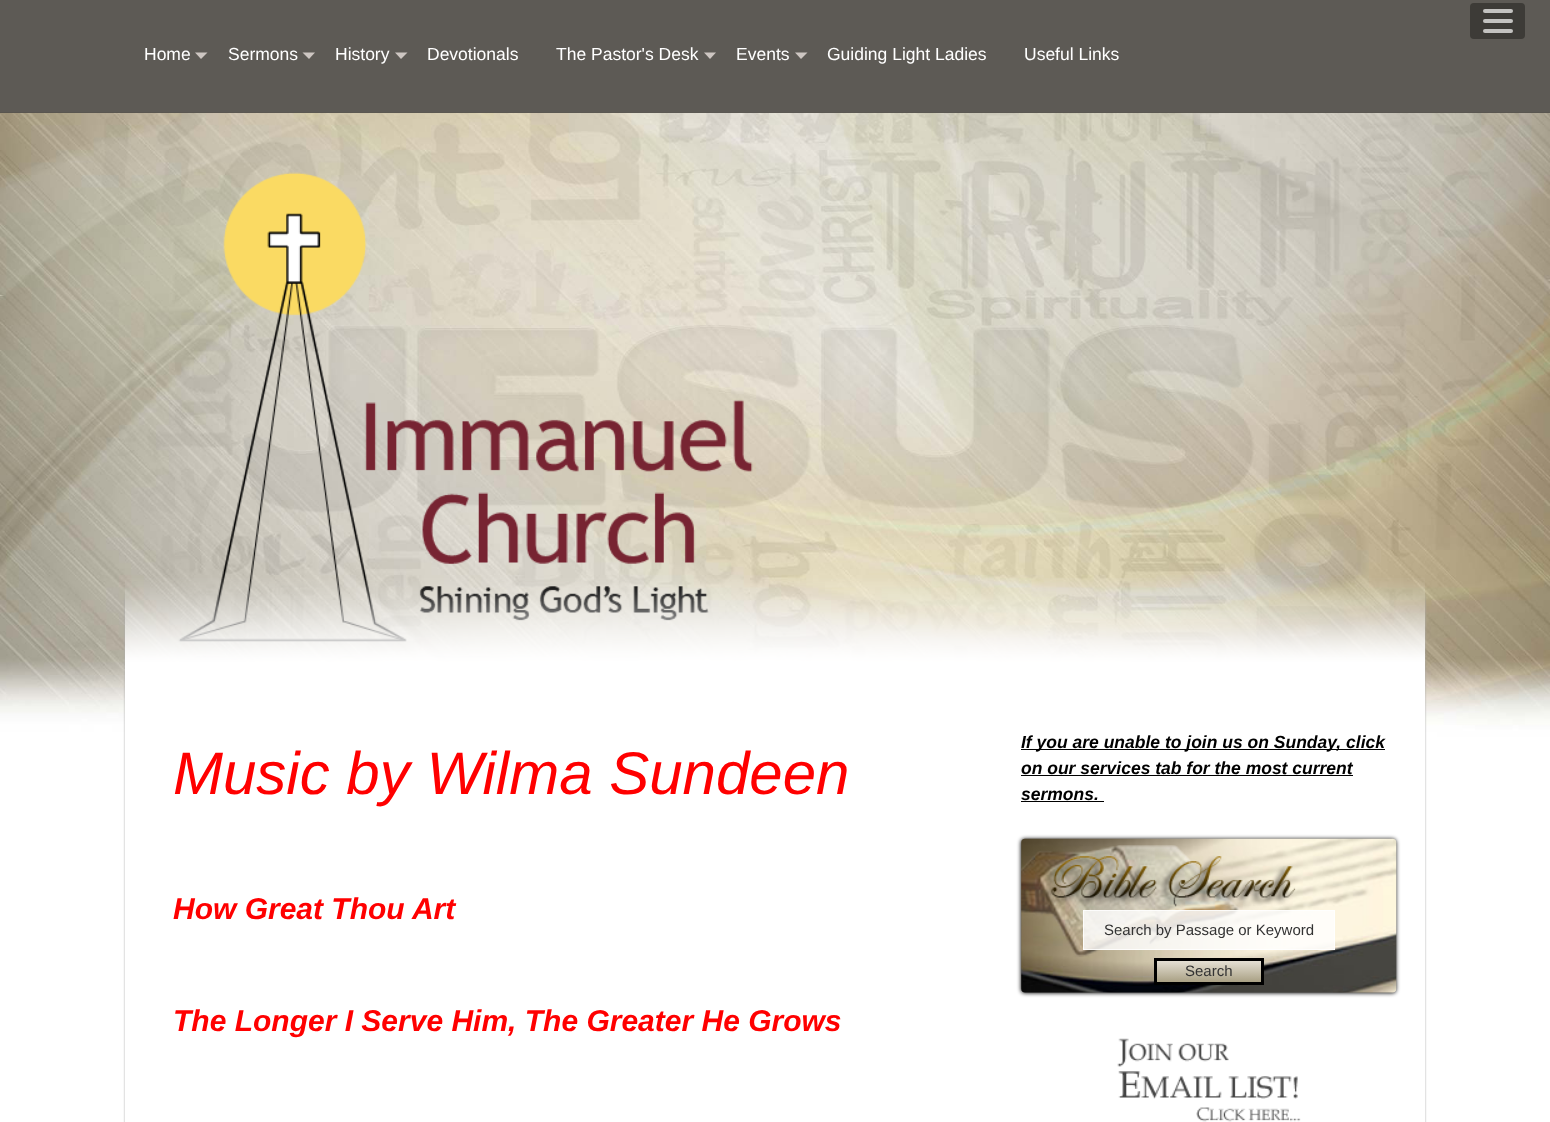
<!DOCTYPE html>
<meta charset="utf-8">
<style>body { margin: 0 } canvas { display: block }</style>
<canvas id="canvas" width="1550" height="1122"></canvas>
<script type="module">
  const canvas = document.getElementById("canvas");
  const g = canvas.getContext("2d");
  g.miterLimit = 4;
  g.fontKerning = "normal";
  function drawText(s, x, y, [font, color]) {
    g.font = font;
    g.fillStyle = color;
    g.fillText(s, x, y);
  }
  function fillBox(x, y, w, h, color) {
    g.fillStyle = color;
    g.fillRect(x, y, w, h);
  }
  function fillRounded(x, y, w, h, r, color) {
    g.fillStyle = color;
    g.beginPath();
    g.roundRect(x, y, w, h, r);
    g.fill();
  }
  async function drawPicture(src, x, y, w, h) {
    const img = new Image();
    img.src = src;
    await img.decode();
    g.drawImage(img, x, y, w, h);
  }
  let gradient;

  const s1 = ["17.5px Liberation Sans", "#FFFFFF"];
  const s2 = ["italic 60px Liberation Sans", "#FF0000"];
  const s3 = ["italic bold 30px Liberation Sans", "#FF0000"];
  const s4 = ["italic bold 17.5px Liberation Sans", "#000000"];
  const s5 = ["15px Liberation Sans", "#333333"];

  fillBox(0, 0, 1550, 1122, "#FFFFFF");
  await drawPicture("pic2.png", 0, 112, 1550, 625);
  fillBox(0, 0, 1550, 113, "rgba(75, 72, 66, 0.9)");
  fillRounded(1470, 3, 55, 36, 4, "#3D3B37");
  fillRounded(1483, 9, 30, 4, 2, "#C3C2C0");
  fillRounded(1483, 19, 30, 4, 2, "#C3C2C0");
  fillRounded(1483, 29, 30, 4, 2, "#C3C2C0");
  await drawPicture("pic1.png", 178, 172, 575, 470);
  drawText("Home", 144, 60, s1);
  g.fillStyle = "#CDC6C2";
  g.beginPath();
  g.moveTo(195, 52.5);
  g.lineTo(207.5, 52.5);
  g.lineTo(201, 59);
  g.closePath();
  g.fill();
  drawText("Sermons", 228, 60, s1);
  g.fillStyle = "#CDC6C2";
  g.beginPath();
  g.moveTo(302.5, 52.5);
  g.lineTo(315, 52.5);
  g.lineTo(309, 59);
  g.closePath();
  g.fill();
  drawText("History", 335, 60, s1);
  g.fillStyle = "#CDC6C2";
  g.beginPath();
  g.moveTo(395, 52.5);
  g.lineTo(407.5, 52.5);
  g.lineTo(401, 59);
  g.closePath();
  g.fill();
  drawText("Devotionals", 427, 60, s1);
  drawText("The Pastor's Desk", 556, 60, s1);
  g.fillStyle = "#CDC6C2";
  g.beginPath();
  g.moveTo(704, 52.5);
  g.lineTo(716, 52.5);
  g.lineTo(710, 59);
  g.closePath();
  g.fill();
  drawText("Events", 736, 60, s1);
  g.fillStyle = "#CDC6C2";
  g.beginPath();
  g.moveTo(795, 52.5);
  g.lineTo(807.5, 52.5);
  g.lineTo(801, 59);
  g.closePath();
  g.fill();
  drawText("Guiding Light Ladies", 827, 60, s1);
  drawText("Useful Links", 1024, 60, s1);
  g.save();
  g.beginPath();
  g.moveTo(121, 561);
  g.lineTo(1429, 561);
  g.lineTo(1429, 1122);
  g.lineTo(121, 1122);
  g.closePath();
  g.moveTo(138, 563);
  g.lineTo(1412, 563);
  g.bezierCurveTo(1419, 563, 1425, 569, 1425, 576);
  g.lineTo(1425, 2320);
  g.bezierCurveTo(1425, 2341, 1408, 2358, 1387, 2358);
  g.lineTo(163, 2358);
  g.bezierCurveTo(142, 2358, 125, 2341, 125, 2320);
  g.lineTo(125, 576);
  g.bezierCurveTo(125, 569, 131, 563, 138, 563);
  g.closePath();
  g.clip("evenodd");
  g.fillStyle = "#AAAAAA";
  g.filter = "blur(1px)";
  g.beginPath();
  g.roundRect(125, 565, 1300, 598, 38);
  g.fill();
  g.filter = "none";
  g.restore();
  await drawPicture("pic3.png", 125, 578, 1300, 159);
  drawText("Music by Wilma Sundeen", 173, 794, s2);
  drawText("How Great Thou Art", 173, 919, s3);
  drawText("The Longer I Serve Him, The Greater He Grows", 173, 1031, s3);
  fillBox(1021, 749, 364, 1, "#000000");
  drawText("If you are unable to join us on Sunday, click", 1021, 748, s4);
  drawText("on our services tab for the most current", 1021, 774, s4);
  fillBox(1021, 775, 332, 1, "#000000");
  drawText("sermons.", 1021, 800, s4);
  fillBox(1021, 801, 83, 1, "#000000");
  g.filter = "blur(2px)";
  g.beginPath();
  g.roundRect(1021, 839, 375, 154, 4);
  g.fill();
  g.filter = "none";
  await drawPicture("pic4.png", 1021, 838, 376, 155);
  await drawPicture("pic5.png", 1021, 845, 275, 112);
  fillBox(1083, 910, 252, 40, "rgba(255, 255, 255, 0.8)");
  g.strokeStyle = "rgba(255, 255, 255, 0.8)";
  g.strokeRect(1083.5, 910.5, 251, 39);
  drawText("Search by Passage or Keyword", 1104, 935, s5);
  gradient = g.createLinearGradient(1209, 960, 1209, 983);
  gradient.addColorStop(0, "#E8E3D8");
  gradient.addColorStop(1, "#A69D80");
  g.fillStyle = gradient;
  g.fillRect(1157, 961, 104, 21);
  g.strokeStyle = "#000000";
  g.lineWidth = 3;
  g.strokeRect(1155.5, 959.5, 107, 24);
  drawText("Search", 1185, 976, s5);
  await drawPicture("pic6.png", 1117, 1038, 184, 84);
</script>
